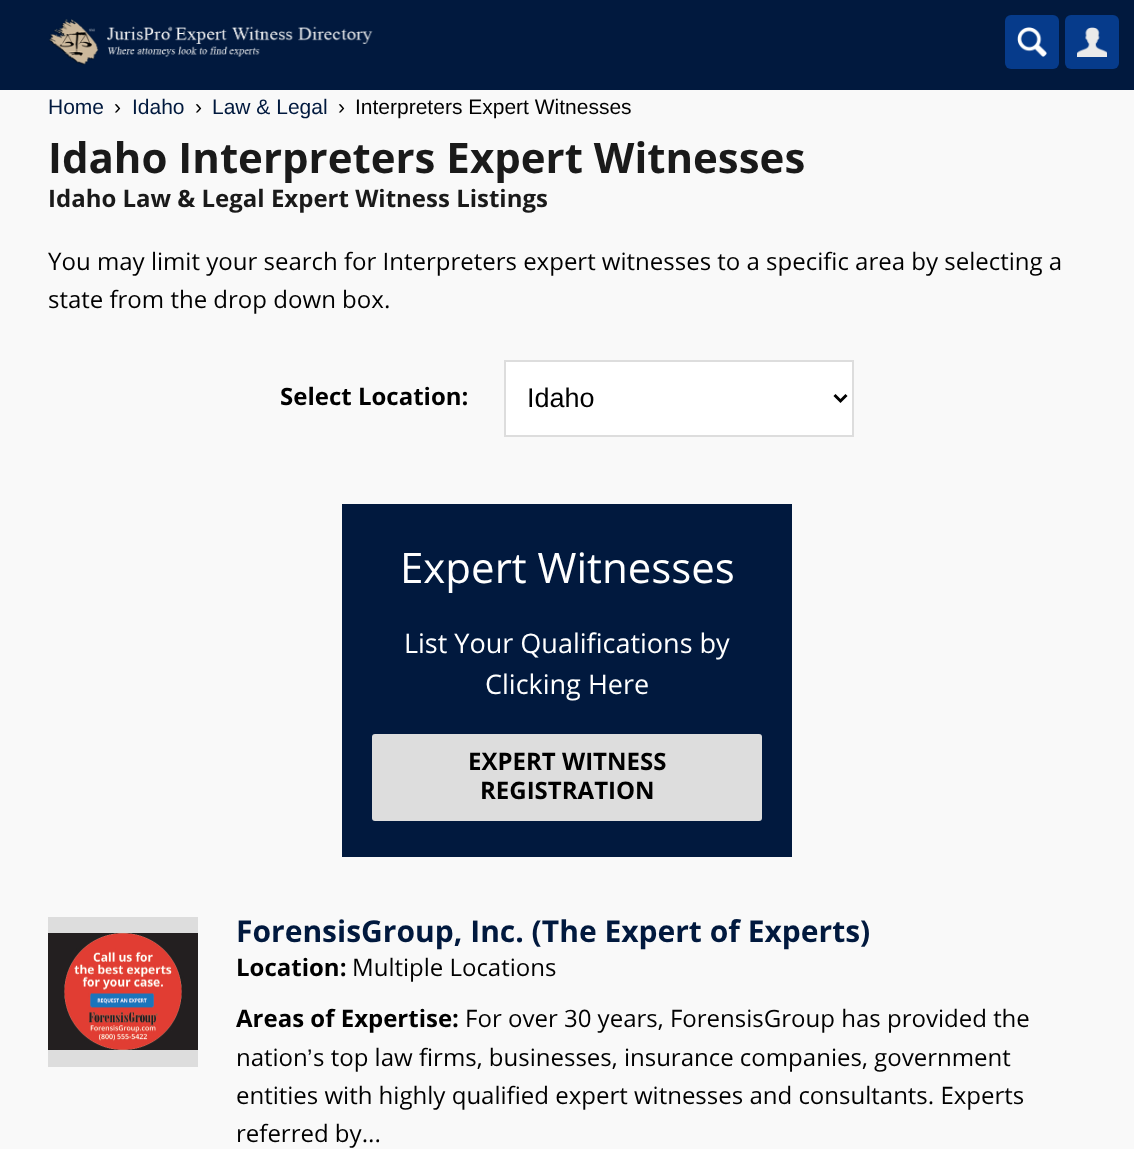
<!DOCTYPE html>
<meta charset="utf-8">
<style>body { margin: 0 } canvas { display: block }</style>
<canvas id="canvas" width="1134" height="1149"></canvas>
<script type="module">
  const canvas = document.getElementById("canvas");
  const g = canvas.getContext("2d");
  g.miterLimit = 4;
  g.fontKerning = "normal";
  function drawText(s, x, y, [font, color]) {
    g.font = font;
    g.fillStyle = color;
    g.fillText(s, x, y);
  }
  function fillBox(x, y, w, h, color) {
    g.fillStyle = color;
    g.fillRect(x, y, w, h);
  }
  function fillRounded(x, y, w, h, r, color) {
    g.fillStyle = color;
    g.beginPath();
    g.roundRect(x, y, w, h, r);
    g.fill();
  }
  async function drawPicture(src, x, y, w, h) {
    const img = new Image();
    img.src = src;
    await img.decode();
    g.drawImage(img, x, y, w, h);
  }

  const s1 = ["21px Liberation Sans", "#01193E"];
  const s2 = ["21px Liberation Sans", "#000000"];
  const s3 = ["bold 42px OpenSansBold", "#1A1A1A"];
  const s4 = ["bold 24px OpenSansBold", "#1A1A1A"];
  const s5 = ["24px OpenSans", "#000000"];
  const s6 = ["bold 24px OpenSansBold", "#000000"];
  const s7 = ["27px Liberation Sans", "#000000"];
  const s8 = ["42px OpenSans", "#FFFFFF"];
  const s9 = ["27px OpenSans", "#FFFFFF"];
  const s10 = ["bold 30px OpenSansBold", "#01193E"];
  const s11 = ["24px Liberation Sans", "#000000"];

  fillBox(0, 0, 1134, 1149, "#F9F9F9");
  fillBox(0, 0, 1134, 90, "#01193E");
  await drawPicture("pic1.png", 49, 19, 324, 46);
  fillRounded(1005, 15, 54, 54, 6, "#063B8B");
  await drawPicture("pic2.png", 1017, 27, 30, 30);
  fillRounded(1065, 15, 54, 54, 6, "#063B8B");
  await drawPicture("pic3.png", 1077, 27, 30, 30);
  drawText("Home", 48, 114, s1);
  drawText("›", 114, 114, s2);
  drawText("Idaho", 132, 114, s1);
  drawText("›", 195, 114, s2);
  drawText("Law & Legal", 212, 114, s1);
  drawText("›", 338, 114, s2);
  drawText("Interpreters Expert Witnesses", 355, 114, s2);
  drawText("Idaho Interpreters Expert Witnesses", 48, 173, s3);
  drawText("Idaho Law & Legal Expert Witness Listings", 48, 207, s4);
  drawText("You may limit your search for Interpreters expert witnesses to a specific area by selecting a", 48, 270, s5);
  drawText("state from the drop down box.", 48, 308, s5);
  drawText("Select Location:", 280, 405, s6);
  g.fillStyle = "#FFFFFF";
  g.beginPath();
  g.rect(505, 361, 348, 75);
  g.fill();
  g.strokeStyle = "#DDDDDD";
  g.lineWidth = 2;
  g.stroke();
  g.beginPath();
  g.moveTo(834.5, 395);
  g.lineTo(840.5, 401);
  g.lineTo(846.5, 395);
  g.strokeStyle = "#000000";
  g.lineWidth = 3;
  g.stroke();
  drawText("Idaho", 527, 407, s7);
  fillBox(342, 504, 450, 353, "#01193E");
  drawText("Expert Witnesses", 400, 583, s8);
  drawText("List Your Qualifications by", 404, 653, s9);
  drawText("Clicking Here", 485, 694, s9);
  fillRounded(372, 734, 390, 87, 3, "#DDDDDD");
  drawText("EXPERT WITNESS", 468, 770, s6);
  drawText("REGISTRATION", 480, 799, s6);
  fillBox(48, 917, 150, 150, "#DDDDDD");
  await drawPicture("pic4.png", 48, 933, 150, 117);
  drawText("ForensisGroup, Inc. (The Expert of Experts)", 236, 942, s10);
  drawText("Location:", 236, 976, s6);
  drawText("Multiple Locations", 352, 976, s5);
  drawText("Areas of Expertise:", 236, 1027, s6);
  drawText("For over 30 years, ForensisGroup has provided the", 465, 1027, s5);
  drawText("nation", 236, 1066, s5);
  drawText("’", 307, 1066, s11);
  drawText("s top law firms, businesses, insurance companies, government", 313, 1066, s5);
  drawText("entities with highly qualified expert witnesses and consultants. Experts", 236, 1104, s5);
  drawText("referred by...", 236, 1142, s5);
</script>
